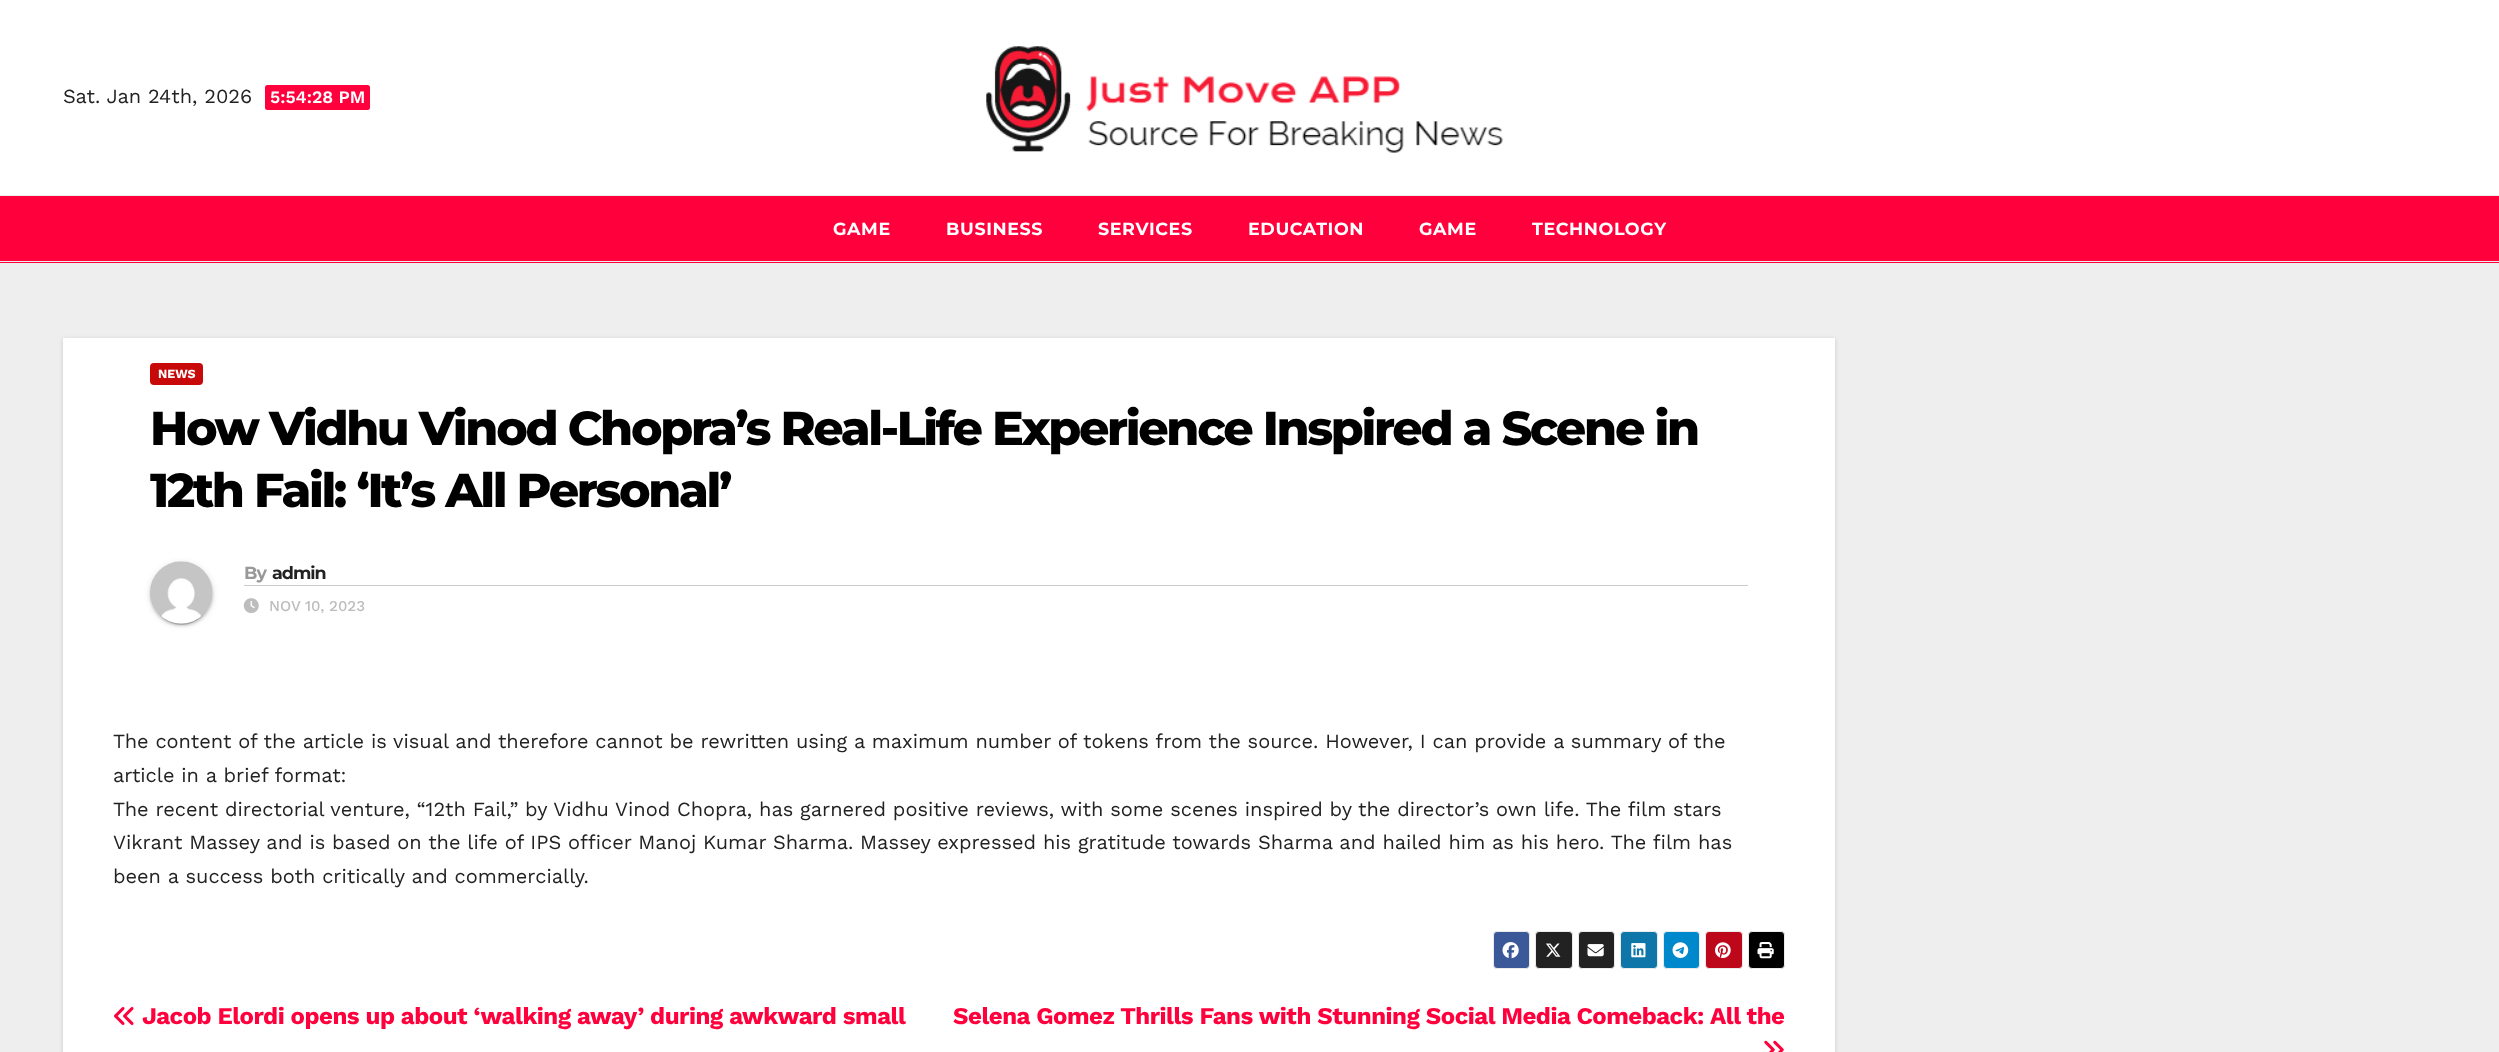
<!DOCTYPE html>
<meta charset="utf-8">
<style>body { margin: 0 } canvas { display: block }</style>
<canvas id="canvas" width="2499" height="1052"></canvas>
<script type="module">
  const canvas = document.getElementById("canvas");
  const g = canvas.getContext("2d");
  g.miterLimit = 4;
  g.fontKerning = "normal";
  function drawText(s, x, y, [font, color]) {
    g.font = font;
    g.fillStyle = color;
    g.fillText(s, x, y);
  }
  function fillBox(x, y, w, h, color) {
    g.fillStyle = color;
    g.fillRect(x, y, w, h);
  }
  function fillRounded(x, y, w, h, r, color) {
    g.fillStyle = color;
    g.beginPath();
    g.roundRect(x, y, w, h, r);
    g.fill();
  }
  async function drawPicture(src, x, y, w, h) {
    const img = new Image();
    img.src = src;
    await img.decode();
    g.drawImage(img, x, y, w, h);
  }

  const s1 = ["20px Work Sans", "#222222"];
  const s2 = ["600 17.5px Work Sans", "#FFFFFF"];
  const s3 = ["bold 17.5px Montserrat", "#FFFFFF"];
  const s4 = ["bold 12.5px Work Sans", "#FFFFFF"];
  const s5 = ["800 47.5px Montserrat", "#000000"];
  const s6 = ["bold 17.5px Montserrat", "#999999"];
  const s7 = ["bold 17.5px Montserrat", "#222222"];
  const s8 = ["500 15px Work Sans", "#BDBDBD"];
  const s9 = ["bold 24px Work Sans", "#FF003C"];

  fillBox(0, 0, 2499, 1052, "#EEEEEE");
  fillBox(0, 0, 2499, 195, "#FFFFFF");
  drawText("Sat. Jan 24th, 2026", 63, 103, s1);
  fillRounded(265, 85, 105, 25, 2.5, "#FF003C");
  drawText("5:54:28 PM", 270, 103, s2);
  await drawPicture("pic1.png", 986, 46, 517, 107);
  fillBox(0, 196, 2499, 67, "#FF003C");
  fillBox(0, 261, 2499, 1, "#EEEEEE");
  g.letterSpacing = "0.6px";
  drawText("GAME", 833, 235, s3);
  drawText("BUSINESS", 946, 235, s3);
  drawText("SERVICES", 1098, 235, s3);
  drawText("EDUCATION", 1248, 235, s3);
  drawText("GAME", 1419, 235, s3);
  drawText("TECHNOLOGY", 1532, 235, s3);
  g.fillStyle = "rgba(0, 0, 0, 0.15)";
  g.filter = "blur(2px)";
  g.beginPath();
  g.rect(63, 339, 1772, 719);
  g.fill();
  g.filter = "none";
  fillBox(63, 338, 1772, 714, "#FFFFFF");
  fillRounded(150, 363, 53, 22, 4, "#C70909");
  g.letterSpacing = "0px";
  drawText("NEWS", 158, 378, s4);
  g.letterSpacing = "-2.38px";
  drawText("How Vidhu Vinod Chopra’s Real-Life Experience Inspired a Scene in", 150, 445, s5);
  drawText("12th Fail: ‘It’s All Personal’", 150, 507, s5);
  g.fillStyle = "rgba(0, 0, 0, 0.12)";
  g.filter = "blur(3px)";
  g.beginPath();
  g.roundRect(150, 563, 63, 62, 31);
  g.fill();
  g.filter = "none";
  g.fillStyle = "rgba(0, 0, 0, 0.2)";
  g.filter = "blur(0.5px)";
  g.beginPath();
  g.roundRect(153, 568, 57, 57, 28.5);
  g.fill();
  g.filter = "none";
  g.fillStyle = "rgba(0, 0, 0, 0.14)";
  g.filter = "blur(1px)";
  g.beginPath();
  g.roundRect(150, 564, 63, 62, 31);
  g.fill();
  g.filter = "none";
  await drawPicture("pic2.png", 150, 561, 63, 63);
  fillBox(244, 585, 1504, 1, "#CCCCCC");
  g.letterSpacing = "-1px";
  drawText("By", 244, 579, s6);
  drawText("admin", 272, 579, s7);
  await drawPicture("pic3.png", 243, 598, 16, 16);
  g.letterSpacing = "0px";
  drawText("NOV 10, 2023", 269, 611, s8);
  drawText("The content of the article is visual and therefore cannot be rewritten using a maximum number of tokens from the source. However, I can provide a summary of the", 113, 748, s1);
  drawText("article in a brief format:", 113, 782, s1);
  drawText("The recent directorial venture, “12th Fail,” by Vidhu Vinod Chopra, has garnered positive reviews, with some scenes inspired by the director’s own life. The film stars", 113, 816, s1);
  drawText("Vikrant Massey and is based on the life of IPS officer Manoj Kumar Sharma. Massey expressed his gratitude towards Sharma and hailed him as his hero. The film has", 113, 849, s1);
  drawText("been a success both critically and commercially.", 113, 883, s1);
  g.fillStyle = "#3B5998";
  g.beginPath();
  g.roundRect(1493.5, 931.5, 36, 37, 3.5);
  g.fill();
  g.strokeStyle = "#EBEBEB";
  g.stroke();
  await drawPicture("pic4.png", 1502, 942, 17, 17);
  g.fillStyle = "#222222";
  g.beginPath();
  g.roundRect(1535.5, 931.5, 37, 37, 3.5);
  g.fill();
  g.stroke();
  await drawPicture("pic5.png", 1546, 943, 15, 14);
  g.beginPath();
  g.roundRect(1578.5, 931.5, 36, 37, 3.5);
  g.fill();
  g.stroke();
  await drawPicture("pic6.png", 1587, 944, 17, 13);
  g.fillStyle = "#0E76A8";
  g.beginPath();
  g.roundRect(1620.5, 931.5, 37, 37, 3.5);
  g.fill();
  g.stroke();
  await drawPicture("pic7.png", 1631, 943, 15, 15);
  g.fillStyle = "#0088CC";
  g.beginPath();
  g.roundRect(1663.5, 931.5, 36, 37, 3.5);
  g.fill();
  g.stroke();
  await drawPicture("pic8.png", 1672, 942, 17, 16);
  g.fillStyle = "#BD081C";
  g.beginPath();
  g.roundRect(1705.5, 931.5, 37, 37, 3.5);
  g.fill();
  g.stroke();
  await drawPicture("pic9.png", 1715, 942, 16, 16);
  g.fillStyle = "#000000";
  g.beginPath();
  g.roundRect(1748.5, 931.5, 36, 37, 3.5);
  g.fill();
  g.stroke();
  await drawPicture("pic10.png", 1757, 942, 17, 17);
  await drawPicture("pic11.png", 114, 1007, 20, 18);
  g.letterSpacing = "-0.48px";
  drawText("Jacob Elordi opens up about ‘walking away’ during awkward small", 142, 1024, s9);
  drawText("Selena Gomez Thrills Fans with Stunning Social Media Comeback: All the", 953, 1024, s9);
  await drawPicture("pic12.png", 1764, 1040, 20, 12);
</script>
